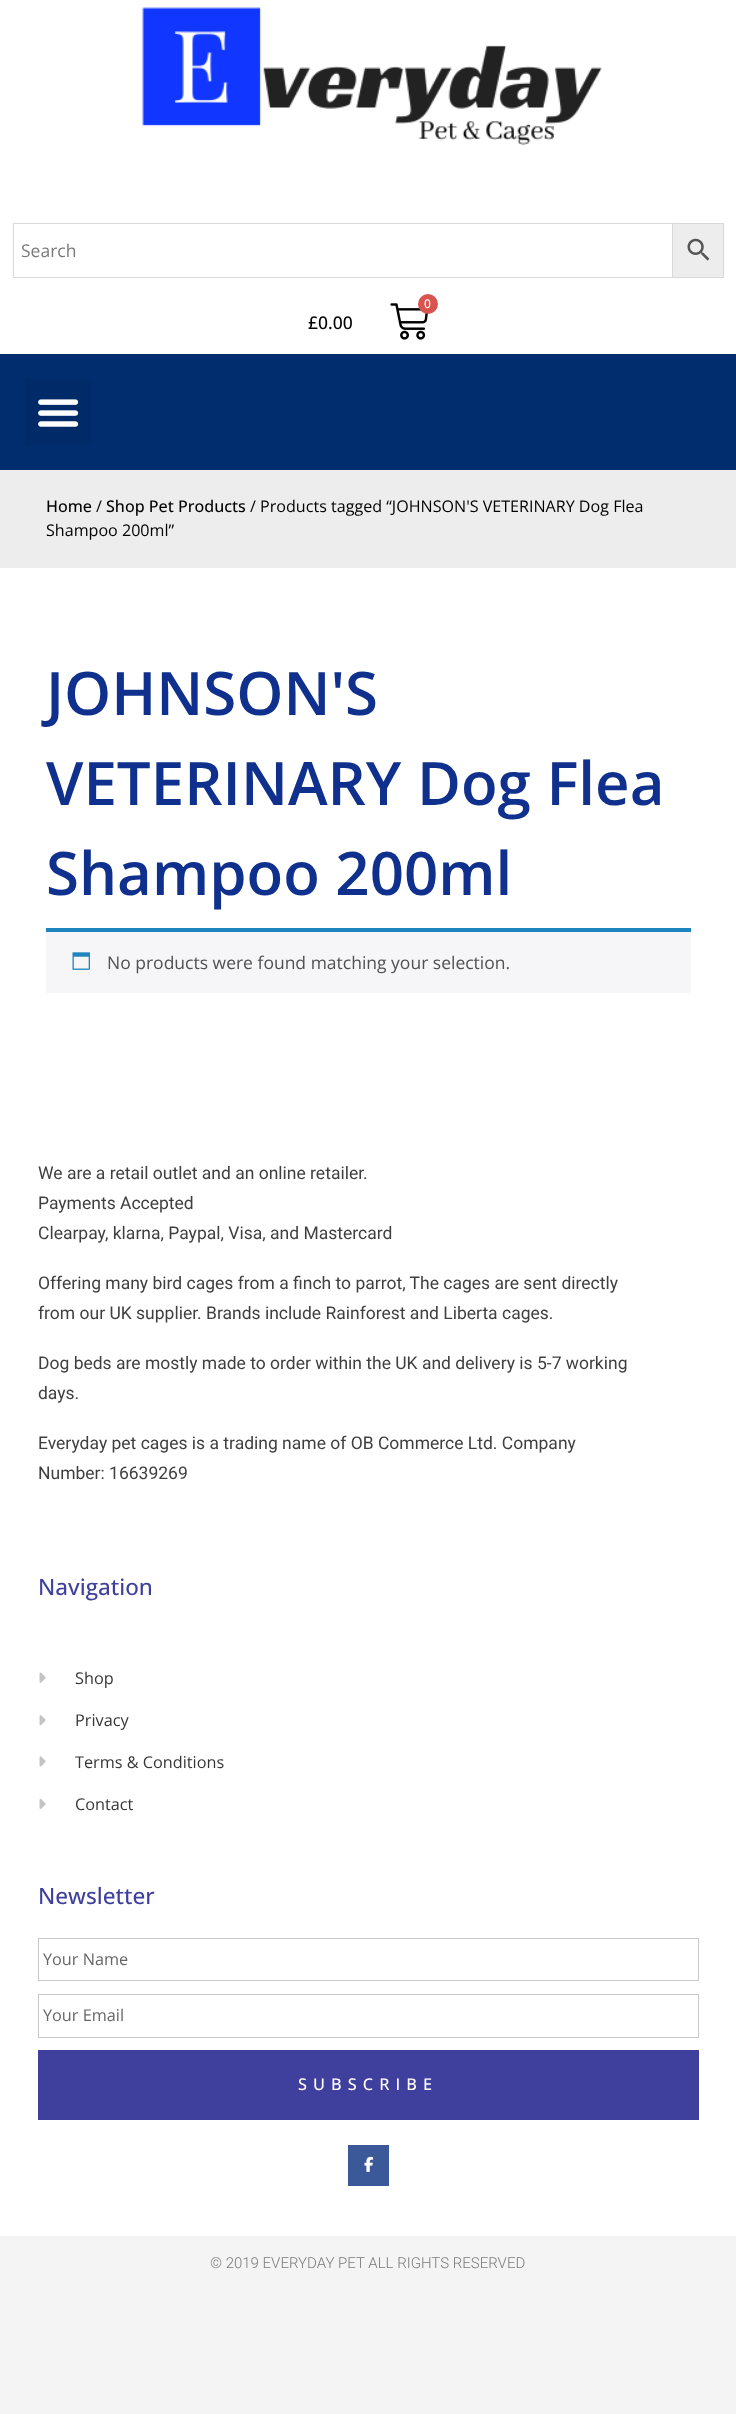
<!DOCTYPE html>
<meta charset="utf-8">
<style>body { margin: 0 } canvas { display: block }</style>
<canvas id="canvas" width="736" height="2414"></canvas>
<script type="module">
  const canvas = document.getElementById("canvas");
  const g = canvas.getContext("2d");
  g.miterLimit = 4;
  g.fontKerning = "normal";
  function drawText(s, x, y, [font, color]) {
    g.font = font;
    g.fillStyle = color;
    g.fillText(s, x, y);
  }
  function fillBox(x, y, w, h, color) {
    g.fillStyle = color;
    g.fillRect(x, y, w, h);
  }
  function fillRounded(x, y, w, h, r, color) {
    g.fillStyle = color;
    g.beginPath();
    g.roundRect(x, y, w, h, r);
    g.fill();
  }
  async function drawPicture(src, x, y, w, h) {
    const img = new Image();
    img.src = src;
    await img.decode();
    g.drawImage(img, x, y, w, h);
  }

  const s1 = ["17.5px Open Sans", "#7A7A7A"];
  const s2 = ["500 12px Open Sans", "#FFFFFF"];
  const s3 = ["500 17.5px Open Sans", "#000000"];
  const s4 = ["500 16.1px Open Sans", "#000000"];
  const s5 = ["16.1px Open Sans", "#000000"];
  const s6 = ["600 60px Open Sans", "#0F308C"];
  const s7 = ["17.5px Open Sans", "#515151"];
  const s8 = ["17.5px Roboto", "#3F3F3F"];
  const s9 = ["500 22.5px Open Sans", "#3F409E"];
  const s10 = ["16.25px Open Sans", "#363636"];
  const s11 = ["16.25px Open Sans", "#666666"];
  const s12 = ["500 16.25px Open Sans", "#FFFFFF"];
  const s13 = ["300 15px Roboto", "#7A7A7A"];

  fillBox(0, 0, 736, 2414, "#FFFFFF");
  await drawPicture("pic1.png", 142, 7, 460, 139);
  fillBox(673, 224, 50, 53, "#EDEDED");
  g.strokeStyle = "#D8D8D8";
  g.strokeRect(671.5, 223.5, 52, 54);
  fillBox(671, 224, 1, 53, "#FFFFFF");
  g.strokeStyle = "#D9D9D9";
  g.strokeRect(13.5, 223.5, 659, 54);
  drawText("Search", 21, 257, s1);
  await drawPicture("pic2.png", 687, 238, 23, 23);
  await drawPicture("pic3.png", 390, 303, 38, 37);
  g.fillStyle = "#D9534F";
  g.beginPath();
  g.arc(428, 304, 10, 0, Math.PI * 2);
  g.fill();
  drawText("0", 424, 308, s2);
  drawText("£0.00", 308, 329, s3);
  fillBox(0, 354, 736, 116, "#012C6D");
  fillRounded(25, 379, 66, 66, 4, "#012A68");
  await drawPicture("pic4.png", 38, 399, 41, 28);
  fillBox(0, 470, 736, 98, "#EDEDED");
  drawText("Home", 46, 512, s4);
  drawText("/", 96, 512, s5);
  drawText("Shop Pet Products", 106, 512, s4);
  drawText("/ Products tagged “JOHNSON'S VETERINARY Dog Flea", 250, 512, s5);
  drawText("Shampoo 200ml”", 46, 536, s5);
  drawText("JOHNSON'S", 46, 715, s6);
  drawText("VETERINARY Dog Flea", 46, 805, s6);
  drawText("Shampoo 200ml", 46, 895, s6);
  fillBox(46, 932, 645, 61, "#F6F5F8");
  fillBox(46, 928, 645, 4, "#1E85BE");
  await drawPicture("pic5.png", 72, 952, 18, 18);
  drawText("No products were found matching your selection.", 107, 969, s7);
  drawText("We are a retail outlet and an online retailer.", 38, 1179, s8);
  drawText("Payments Accepted", 38, 1209, s8);
  drawText("Clearpay, klarna, Paypal, Visa, and Mastercard", 38, 1239, s8);
  drawText("Offering many bird cages from a finch to parrot, The cages are sent directly", 38, 1289, s8);
  drawText("from our UK supplier. Brands include Rainforest and Liberta cages.", 38, 1319, s8);
  drawText("Dog beds are mostly made to order within the UK and delivery is 5-7 working", 38, 1369, s8);
  drawText("days.", 38, 1399, s8);
  drawText("Everyday pet cages is a trading name of OB Commerce Ltd. Company", 38, 1449, s8);
  drawText("Number: 16639269", 38, 1479, s8);
  drawText("Navigation", 38, 1595, s9);
  await drawPicture("pic6.png", 39, 1672, 7, 11);
  drawText("Shop", 75, 1684, s10);
  await drawPicture("pic7.png", 39, 1715, 7, 11);
  drawText("Privacy", 75, 1726, s10);
  await drawPicture("pic8.png", 39, 1756, 7, 11);
  drawText("Terms & Conditions", 75, 1768, s10);
  await drawPicture("pic9.png", 39, 1798, 7, 11);
  drawText("Contact", 75, 1810, s10);
  drawText("Newsletter", 38, 1904, s9);
  g.strokeStyle = "#C9C9C9";
  g.strokeRect(38.5, 1938.5, 660, 42);
  drawText("Your Name", 43, 1965, s11);
  g.strokeRect(38.5, 1994.5, 660, 43);
  drawText("Your Email", 43, 2021, s11);
  fillBox(38, 2050, 661, 70, "#3F409E");
  g.letterSpacing = "6.1px";
  drawText("SUBSCRIBE", 298, 2090, s12);
  fillBox(348, 2145, 41, 41, "#3B5998");
  await drawPicture("pic10.png", 364, 2156, 10, 16);
  fillBox(0, 2236, 736, 178, "#F4F4F4");
  g.letterSpacing = "0px";
  drawText("© 2019 EVERYDAY PET ALL RIGHTS RESERVED", 210, 2268, s13);
</script>
